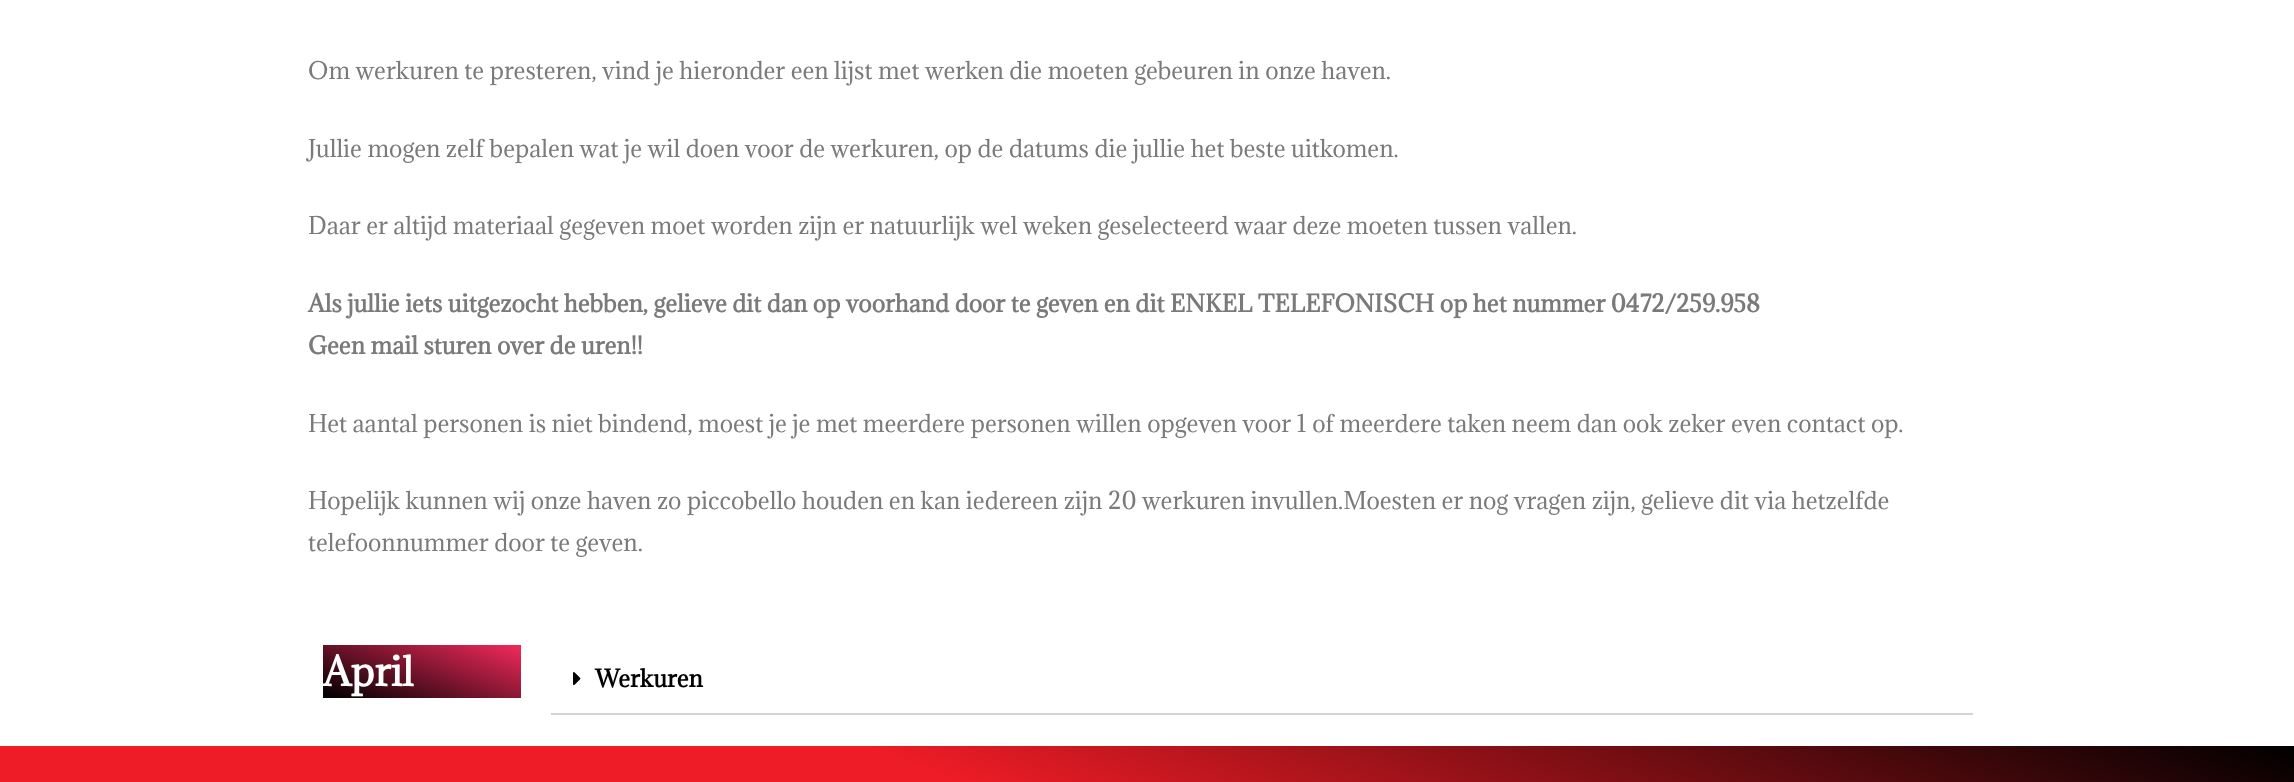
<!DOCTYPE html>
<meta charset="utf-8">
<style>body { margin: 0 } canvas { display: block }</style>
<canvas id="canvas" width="2294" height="782"></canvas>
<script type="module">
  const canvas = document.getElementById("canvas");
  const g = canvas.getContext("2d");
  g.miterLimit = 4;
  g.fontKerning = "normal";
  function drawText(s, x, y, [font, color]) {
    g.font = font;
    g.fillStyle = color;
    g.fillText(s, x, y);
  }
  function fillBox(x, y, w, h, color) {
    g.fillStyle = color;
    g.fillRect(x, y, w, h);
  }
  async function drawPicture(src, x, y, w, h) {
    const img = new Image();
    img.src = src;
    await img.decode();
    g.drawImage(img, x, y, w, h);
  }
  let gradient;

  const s1 = ["22.5px Adamina", "#7A7A7A"];
  const s2 = ["bold 22.5px Adamina", "#7A7A7A"];
  const s3 = ["bold 37.5px Adamina", "#FFFFFF"];
  const s4 = ["bold 22.5px Adamina", "#000102"];

  fillBox(0, 0, 2294, 782, "#FFFFFF");
  drawText("Om werkuren te presteren, vind je hieronder een lijst met werken die moeten gebeuren in onze haven.", 308, 79, s1);
  drawText("Jullie mogen zelf bepalen wat je wil doen voor de werkuren, op de datums die jullie het beste uitkomen.", 308, 157, s1);
  drawText("Daar er altijd materiaal gegeven moet worden zijn er natuurlijk wel weken geselecteerd waar deze moeten tussen vallen.", 308, 234, s1);
  drawText("Als jullie iets uitgezocht hebben, gelieve dit dan op voorhand door te geven en dit ENKEL TELEFONISCH op het nummer 0472/259.958", 308, 312, s2);
  drawText("Geen mail sturen over de uren!!", 308, 354, s2);
  drawText("Het aantal personen is niet bindend, moest je je met meerdere personen willen opgeven voor 1 of meerdere taken neem dan ook zeker even contact op.", 308, 432, s1);
  drawText("Hopelijk kunnen wij onze haven zo piccobello houden en kan iedereen zijn 20 werkuren invullen.Moesten er nog vragen zijn, gelieve dit via hetzelfde", 308, 509, s1);
  drawText("telefoonnummer door te geven.", 308, 551, s1);
  gradient = g.createLinearGradient(401, 726, 442, 616);
  gradient.addColorStop(0, "#000000");
  gradient.addColorStop(1, "#F2295B");
  g.fillStyle = gradient;
  g.fillRect(323, 645, 198, 53);
  drawText("April", 323, 686, s3);
  fillBox(551, 713, 1422, 2, "#D4D4D4");
  await drawPicture("pic1.png", 573, 672, 8, 14);
  drawText("Werkuren", 595, 687, s4);
  gradient = g.createLinearGradient(959, 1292, 1336, 358);
  gradient.addColorStop(0.47, "#ED1C26");
  gradient.addColorStop(1, "#000000");
  g.fillStyle = gradient;
  g.fillRect(0, 746, 2294, 36);
</script>
